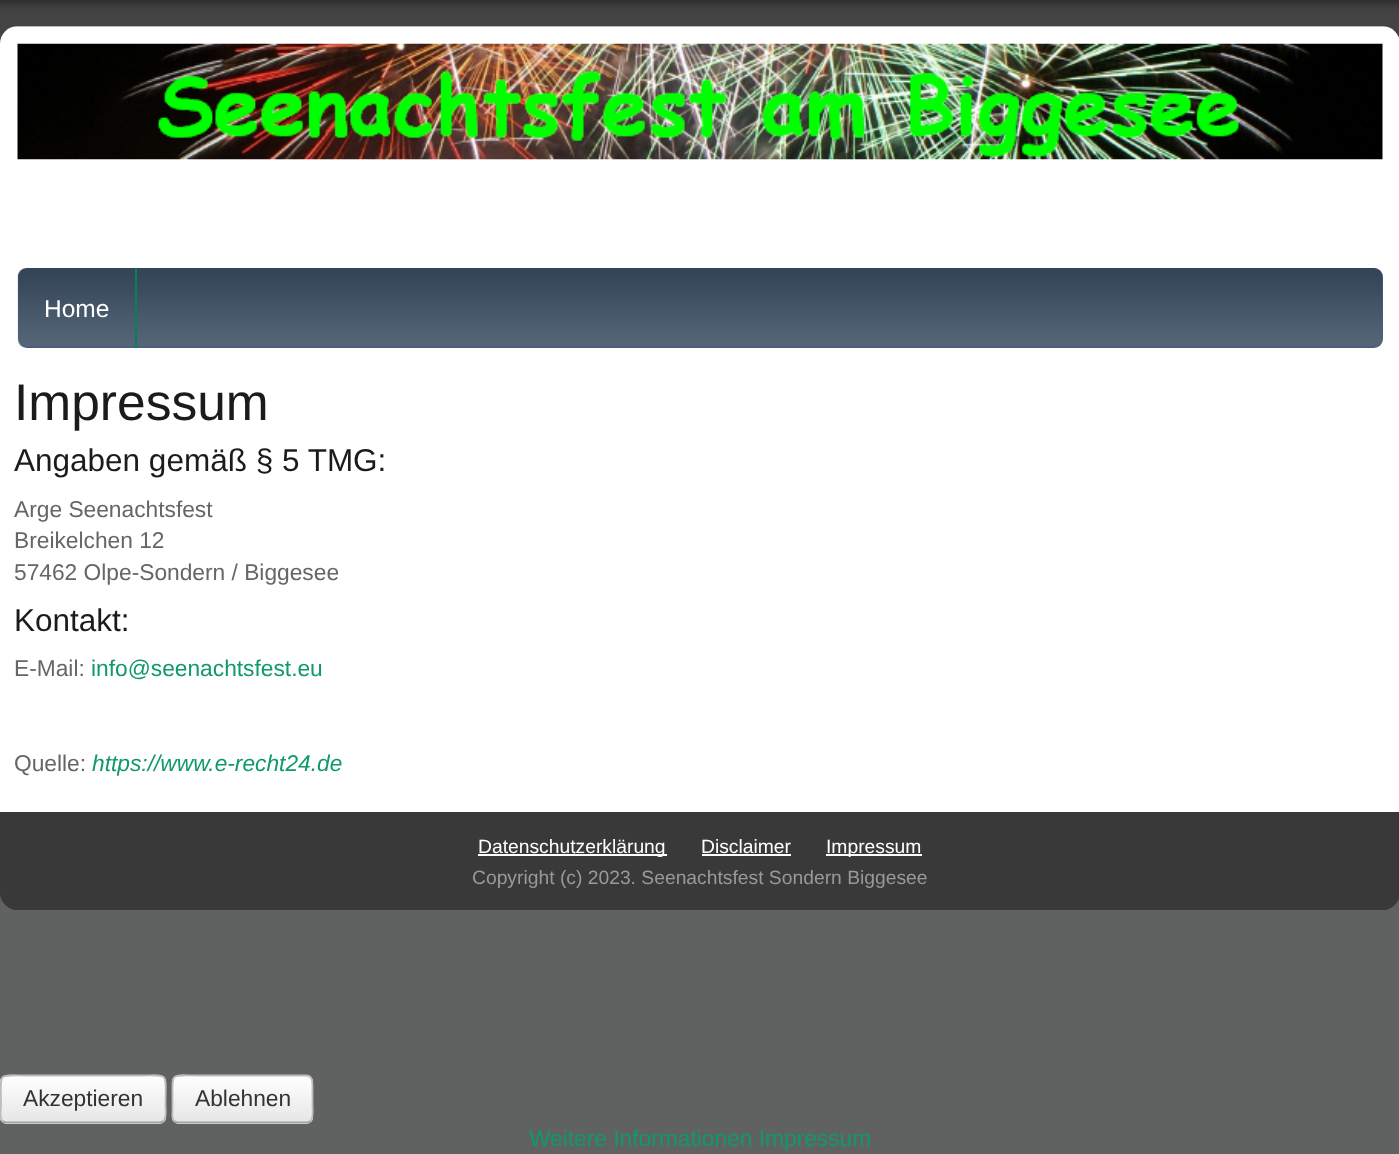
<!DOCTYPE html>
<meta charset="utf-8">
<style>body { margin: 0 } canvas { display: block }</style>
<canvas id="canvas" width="1399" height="1154"></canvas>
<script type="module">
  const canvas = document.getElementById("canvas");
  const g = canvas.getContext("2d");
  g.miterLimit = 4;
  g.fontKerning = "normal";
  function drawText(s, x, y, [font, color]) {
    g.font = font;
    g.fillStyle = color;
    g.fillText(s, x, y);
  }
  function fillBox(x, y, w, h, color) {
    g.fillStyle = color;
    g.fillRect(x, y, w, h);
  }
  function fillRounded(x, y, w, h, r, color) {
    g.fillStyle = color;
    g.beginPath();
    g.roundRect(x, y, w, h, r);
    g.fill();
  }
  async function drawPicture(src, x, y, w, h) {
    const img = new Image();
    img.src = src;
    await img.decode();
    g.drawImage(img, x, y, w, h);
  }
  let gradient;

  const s1 = ["24.5px Liberation Sans", "#FFFFFF"];
  const s2 = ["51.5px Liberation Sans", "#1B1B1B"];
  const s3 = ["31.5px Liberation Sans", "#1B1B1B"];
  const s4 = ["22.75px Liberation Sans", "#666666"];
  const s5 = ["22.75px Liberation Sans", "#11996D"];
  const s6 = ["italic 22.75px Liberation Sans", "#11996D"];
  const s7 = ["19.3px Liberation Sans", "#FFFFFF"];
  const s8 = ["19.3px Liberation Sans", "#999999"];
  const s9 = ["22.75px Liberation Sans", "#333333"];

  fillBox(0, 0, 1399, 1154, "#606161");
  await drawPicture("pic1.png", 0, 0, 1399, 44);
  g.beginPath();
  g.moveTo(18, 26);
  g.lineTo(1382, 26);
  g.bezierCurveTo(1392, 26, 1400, 34, 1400, 44);
  g.lineTo(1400, 350);
  g.lineTo(0, 350);
  g.lineTo(0, 44);
  g.bezierCurveTo(0, 34, 8, 26, 18, 26);
  g.closePath();
  g.fill();
  await drawPicture("pic2.png", 0, 26, 1399, 324);
  await drawPicture("pic3.png", 17, 43, 1366, 117);
  fillRounded(18, 268, 1365, 80, 9, "#455D79");
  await drawPicture("pic4.png", 17, 268, 1366, 79);
  fillBox(135, 268, 2, 80, "#07815A");
  drawText("Home", 44, 317, s1);
  fillBox(0, 350, 1399, 462, "#FFFFFF");
  drawText("Impressum", 14, 420, s2);
  drawText("Angaben gemäß § 5 TMG:", 14, 471, s3);
  drawText("Arge Seenachtsfest", 14, 517, s4);
  drawText("Breikelchen 12", 14, 548, s4);
  drawText("57462 Olpe-Sondern / Biggesee", 14, 580, s4);
  drawText("Kontakt:", 14, 631, s3);
  drawText("E-Mail:", 14, 676, s4);
  drawText("info@seenachtsfest.eu", 91, 676, s5);
  drawText("Quelle:", 14, 771, s4);
  drawText("https://www.e-recht24.de", 92, 771, s6);
  g.fillStyle = "#393939";
  g.beginPath();
  g.moveTo(0, 812);
  g.lineTo(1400, 812);
  g.lineTo(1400, 892);
  g.bezierCurveTo(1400, 902, 1392, 910, 1382, 910);
  g.lineTo(18, 910);
  g.bezierCurveTo(8, 910, 0, 902, 0, 892);
  g.closePath();
  g.fill();
  await drawPicture("pic5.png", 0, 894, 1399, 16);
  fillBox(478, 854, 189, 2, "#FFFFFF");
  drawText("Datenschutzerklärung", 478, 853, s7);
  drawText("Disclaimer", 701, 853, s7);
  fillBox(702, 854, 89, 2, "#FFFFFF");
  fillBox(826, 854, 96, 2, "#FFFFFF");
  drawText("Impressum", 826, 853, s7);
  drawText("Copyright (c) 2023. Seenachtsfest Sondern Biggesee", 472, 884, s8);
  fillRounded(0, 1075, 166, 49, 7, "#F5F5F5");
  g.save();
  g.beginPath();
  g.roundRect(0, 1075, 166, 49, 7);
  g.clip();
  gradient = g.createLinearGradient(83, 1076, 83, 1122);
  gradient.addColorStop(0, "#FFFFFF");
  gradient.addColorStop(1, "#E6E6E6");
  g.fillStyle = gradient;
  g.fillRect(0, 1076, 166, 46);
  g.restore();
  g.fillStyle = "rgba(255, 255, 255, 0.2)";
  g.beginPath();
  g.moveTo(7, 1078);
  g.lineTo(159, 1078);
  g.bezierCurveTo(162, 1078, 164, 1080, 164, 1083);
  g.lineTo(164, 1118);
  g.lineTo(164, 1121);
  g.bezierCurveTo(164, 1120, 165, 1118, 165, 1117);
  g.lineTo(165, 1081);
  g.bezierCurveTo(165, 1078, 163, 1076, 160, 1076);
  g.lineTo(7, 1076);
  g.bezierCurveTo(4, 1076, 2, 1078, 2, 1081);
  g.lineTo(2, 1083);
  g.bezierCurveTo(2, 1080, 4, 1078, 7, 1078);
  g.closePath();
  g.fill();
  g.beginPath();
  g.moveTo(163.5, 1121);
  g.bezierCurveTo(162.5, 1122, 161, 1122.5, 159, 1122.5);
  g.lineTo(7, 1122.5);
  g.bezierCurveTo(5.5, 1122.5, 4, 1122, 2.5, 1121);
  g.strokeStyle = "#A2A2A2";
  g.lineWidth = 1.8;
  g.stroke();
  g.beginPath();
  g.moveTo(2.5, 1121);
  g.bezierCurveTo(-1, 1117.5, 1, 1108.5, 1, 1105);
  g.bezierCurveTo(1, 1070, -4.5, 1075.5, 32.5, 1075.5);
  g.lineTo(134, 1075.5);
  g.bezierCurveTo(171, 1075.5, 165.5, 1070, 165.5, 1105);
  g.bezierCurveTo(165.5, 1108.5, 167, 1117.5, 163.5, 1121);
  g.strokeStyle = "#BBBBBB";
  g.stroke();
  drawText("Akzeptieren", 23, 1106, s9);
  fillRounded(172, 1075, 141, 49, 7, "#F5F5F5");
  g.save();
  g.beginPath();
  g.roundRect(172, 1075, 141, 49, 7);
  g.clip();
  gradient = g.createLinearGradient(242, 1076, 242, 1122);
  gradient.addColorStop(0, "#FFFFFF");
  gradient.addColorStop(1, "#E6E6E6");
  g.fillStyle = gradient;
  g.fillRect(172, 1076, 141, 46);
  g.restore();
  g.beginPath();
  g.moveTo(310.5, 1121);
  g.bezierCurveTo(309.5, 1122, 308, 1122.5, 306, 1122.5);
  g.lineTo(178.5, 1122.5);
  g.bezierCurveTo(177, 1122.5, 175.5, 1122, 174, 1121);
  g.strokeStyle = "#A2A2A2";
  g.stroke();
  g.beginPath();
  g.moveTo(174, 1121);
  g.bezierCurveTo(171.5, 1118, 172.5, 1114, 172.5, 1110.5);
  g.lineTo(172.5, 1099);
  g.bezierCurveTo(172.5, 1071, 169.5, 1075.5, 200, 1075.5);
  g.lineTo(306, 1075.5);
  g.bezierCurveTo(313, 1075.5, 312.5, 1082.5, 312.5, 1087.5);
  g.lineTo(312.5, 1105);
  g.bezierCurveTo(312.5, 1108.5, 314, 1117.5, 310.5, 1121);
  g.strokeStyle = "#BBBBBB";
  g.stroke();
  drawText("Ablehnen", 195, 1106, s9);
  drawText("Weitere Informationen Impressum", 529, 1146, s5);
</script>
